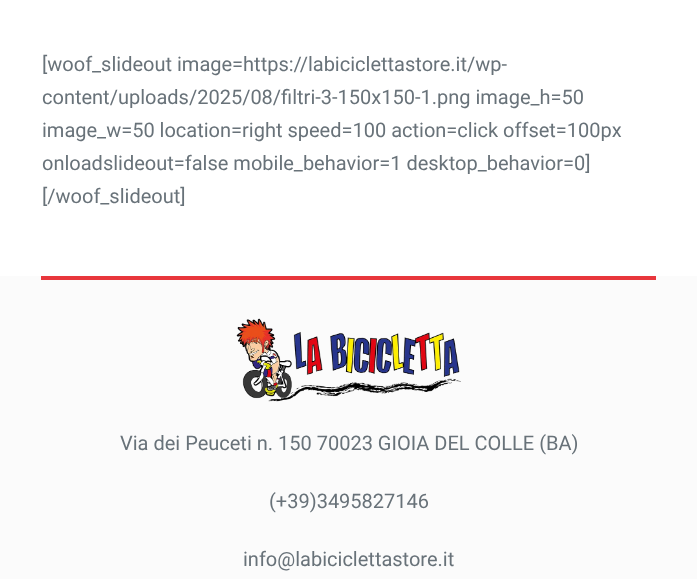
<!DOCTYPE html>
<meta charset="utf-8">
<style>body { margin: 0 } canvas { display: block }</style>
<canvas id="canvas" width="697" height="579"></canvas>
<script type="module">
  const canvas = document.getElementById("canvas");
  const g = canvas.getContext("2d");
  g.miterLimit = 4;
  g.fontKerning = "normal";
  function drawText(s, x, y, [font, color]) {
    g.font = font;
    g.fillStyle = color;
    g.fillText(s, x, y);
  }
  function fillBox(x, y, w, h, color) {
    g.fillStyle = color;
    g.fillRect(x, y, w, h);
  }
  async function drawPicture(src, x, y, w, h) {
    const img = new Image();
    img.src = src;
    await img.decode();
    g.drawImage(img, x, y, w, h);
  }

  const s1 = ["20px Roboto", "#687279"];

  fillBox(0, 0, 697, 579, "#FFFFFF");
  drawText("[woof_slideout image=https://labiciclettastore.it/wp-", 42, 71, s1);
  drawText("content/uploads/2025/08/filtri-3-150x150-1.png image_h=50", 42, 104, s1);
  drawText("image_w=50 location=right speed=100 action=click offset=100px", 42, 137, s1);
  drawText("onloadslideout=false mobile_behavior=1 desktop_behavior=0]", 42, 170, s1);
  drawText("[/woof_slideout]", 42, 203, s1);
  fillBox(0, 276, 697, 303, "#FBFBFB");
  fillBox(41, 276, 615, 4, "#E8363C");
  await drawPicture("pic1.png", 236, 318, 225, 84);
  drawText("Via dei Peuceti n. 150 70023 GIOIA DEL COLLE (BA)", 120, 450, s1);
  drawText("(+39)3495827146", 269, 508, s1);
  drawText("info@labiciclettastore.it", 243, 566, s1);
</script>
